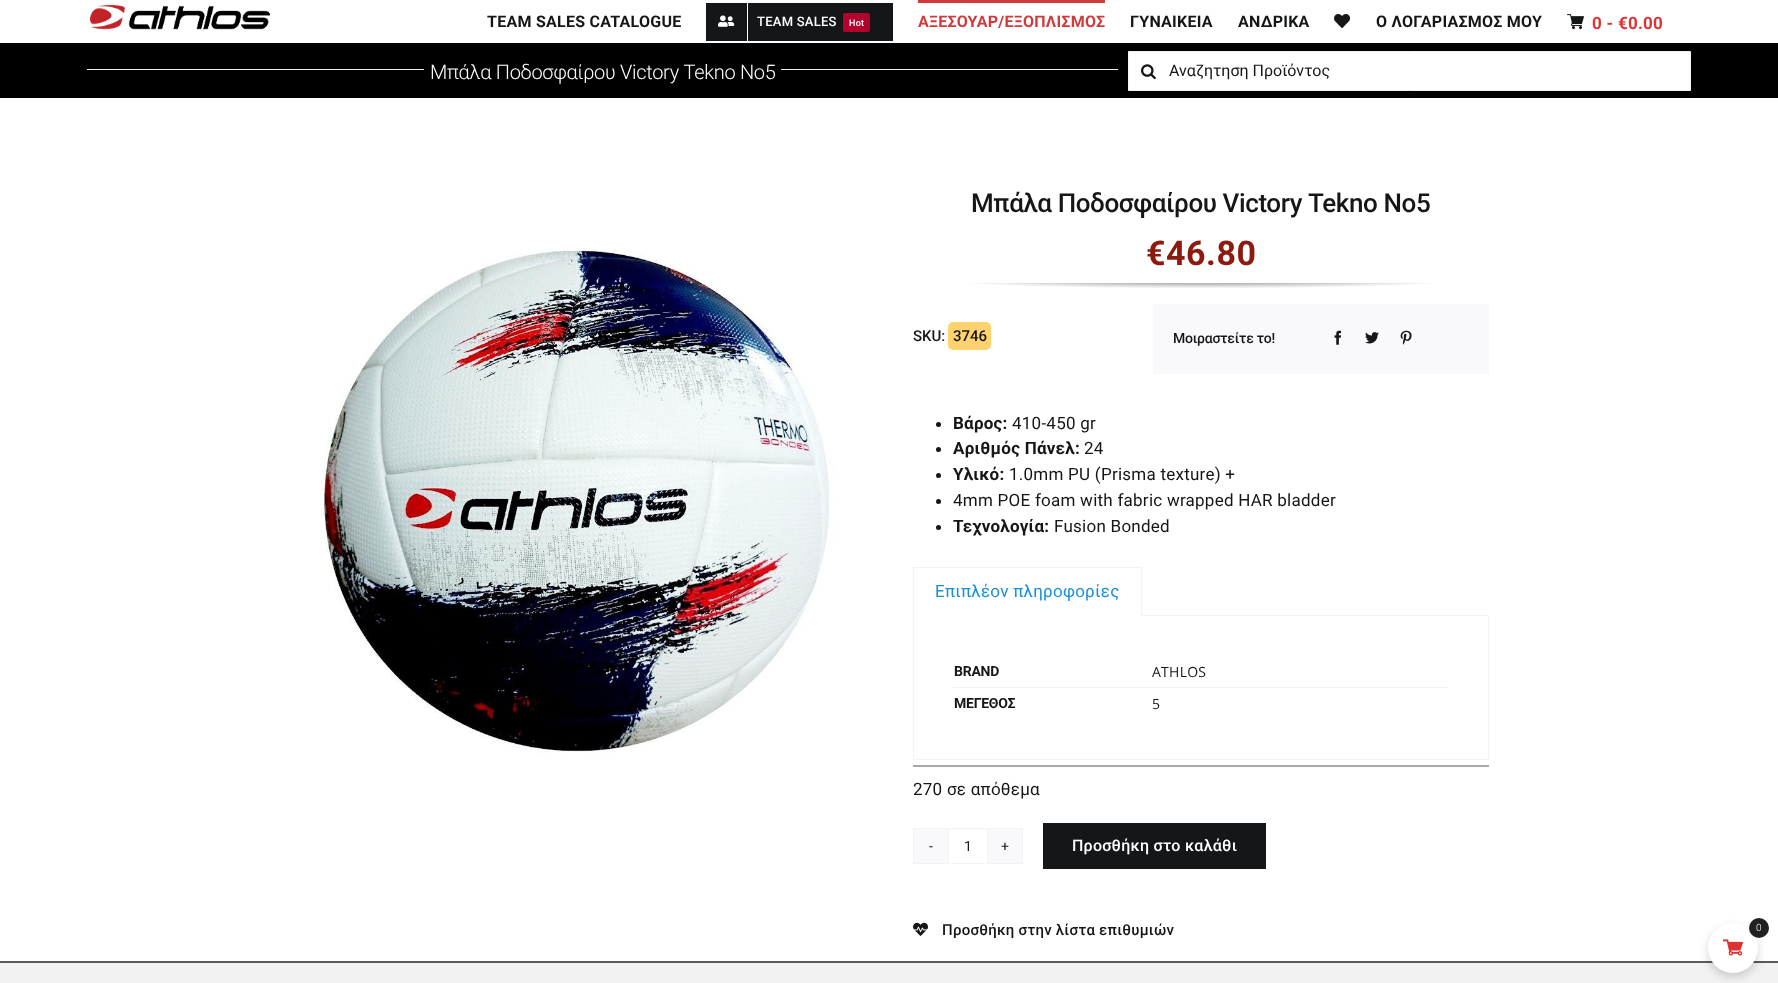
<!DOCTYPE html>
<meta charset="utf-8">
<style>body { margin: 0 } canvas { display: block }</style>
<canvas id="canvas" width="1778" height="983"></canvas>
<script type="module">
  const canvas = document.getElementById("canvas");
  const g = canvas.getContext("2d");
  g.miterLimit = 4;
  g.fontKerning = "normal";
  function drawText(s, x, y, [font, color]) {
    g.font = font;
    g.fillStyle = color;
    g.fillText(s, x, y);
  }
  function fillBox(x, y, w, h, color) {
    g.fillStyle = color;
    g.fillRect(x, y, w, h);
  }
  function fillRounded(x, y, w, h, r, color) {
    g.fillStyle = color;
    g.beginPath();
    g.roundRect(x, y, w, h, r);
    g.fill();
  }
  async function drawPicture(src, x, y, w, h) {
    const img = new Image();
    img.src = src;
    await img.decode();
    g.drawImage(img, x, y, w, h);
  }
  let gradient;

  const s1 = ["bold 16px Roboto", "#141617"];
  const s2 = ["500 13px Roboto", "#FFFFFF"];
  const s3 = ["500 9px Roboto", "#FFFFFF"];
  const s4 = ["bold 16px Roboto", "#D13A3A"];
  const s5 = ["bold 17px Roboto", "#DD3333"];
  const s6 = ["300 20px Roboto", "#FFFFFF"];
  const s7 = ["16px Roboto", "#141617"];
  const s8 = ["500 26px Roboto", "#141617"];
  const s9 = ["bold 34px Roboto", "#8C1A0E"];
  const s10 = ["500 15px Roboto", "#141617"];
  const s11 = ["500 14px Roboto", "#141617"];
  const s12 = ["bold 17px Roboto", "#141617"];
  const s13 = ["17px Roboto", "#141617"];
  const s14 = ["17px Roboto", "#198FD9"];
  const s15 = ["bold 14px Roboto", "#141617"];
  const s16 = ["14px Open Sans", "#141617"];
  const s17 = ["14px Roboto", "#141617"];
  const s18 = ["500 16px Roboto", "#FFFFFF"];
  const s19 = ["300 10px Roboto", "#FFFFFF"];

  fillBox(0, 0, 1778, 983, "#FFFFFF");
  await drawPicture("pic1.png", 90, 5, 180, 25);
  g.letterSpacing = "0.25px";
  drawText("TEAM SALES CATALOGUE", 487, 27, s1);
  fillBox(706, 3, 187, 38, "#141617");
  fillBox(747, 3, 1, 38, "#FFFFFF");
  await drawPicture("pic2.png", 718, 15, 17, 12);
  drawText("TEAM SALES", 757, 26, s2);
  fillRounded(843, 13, 27, 19, 2, "#B2032F");
  drawText("Hot", 849, 26, s3);
  fillBox(918, 0, 187, 3, "#D13A3A");
  drawText("ΑΞΕΣΟΥΑΡ/ΕΞΟΠΛΙΣΜΟΣ", 918, 27, s4);
  drawText("ΓΥΝΑΙΚΕΙΑ", 1130, 27, s1);
  drawText("ΑΝΔΡΙΚΑ", 1238, 27, s1);
  await drawPicture("pic3.png", 1334, 14, 16, 14);
  drawText("O ΛΟΓΑΡΙΑΣΜΟΣ ΜΟΥ", 1376, 27, s1);
  await drawPicture("pic4.png", 1567, 14, 17, 16);
  drawText("0 - €0.00", 1592, 29, s5);
  fillBox(0, 43, 1778, 55, "#000000");
  fillBox(87, 69, 337, 1, "#EFEFEF");
  g.letterSpacing = "-0.3px";
  drawText("Μπάλα Ποδοσφαίρου Victory Tekno No5", 430, 79, s6);
  fillBox(781, 69, 337, 1, "#EFEFEF");
  g.fillStyle = "#FFFFFF";
  g.beginPath();
  g.rect(1128.5, 51.5, 562, 39);
  g.fill();
  g.strokeStyle = "#F2F3F5";
  g.stroke();
  await drawPicture("pic5.png", 1141, 64, 15, 16);
  g.letterSpacing = "0px";
  drawText("Αναζητηση Προϊόντος", 1169, 76, s7);
  await drawPicture("pic6.png", 321, 249, 513, 504);
  g.letterSpacing = "-0.4px";
  drawText("Μπάλα Ποδοσφαίρου Victory Tekno No5", 971, 212, s8);
  g.letterSpacing = "0.5px";
  drawText("€46.80", 1146, 265, s9);
  gradient = g.createRadialGradient(1201, 8766.15, 0, 1201, 8766.15, 407);
  gradient.addColorStop(0, "#808080");
  gradient.addColorStop(0.65, "#FFFFFF");
  g.fillStyle = gradient;
  g.beginPath();
  g.rect(966, 283, 470, 5);
  g.save();
  g.clip();
  g.scale(1, 13 / 407);
  g.fillRect(0, 0, 1778, 30776);
  g.restore();
  g.letterSpacing = "0px";
  drawText("SKU:", 913, 341, s10);
  fillRounded(948, 322, 43, 28, 5, "#FFD270");
  drawText("3746", 953, 341, s10);
  fillBox(1153, 304, 336, 70, "#F9F9FB");
  g.letterSpacing = "-0.25px";
  drawText("Μοιραστείτε το!", 1173, 343, s11);
  await drawPicture("pic7.png", 1334, 330, 8, 15);
  await drawPicture("pic8.png", 1365, 332, 14, 12);
  await drawPicture("pic9.png", 1400, 330, 12, 15);
  g.beginPath();
  g.arc(938.5, 424.5, 2.5, 0, Math.PI * 2);
  g.fill();
  g.letterSpacing = "0.25px";
  drawText("Βάρος:", 953, 429, s12);
  drawText("410-450 gr", 1012, 429, s13);
  g.beginPath();
  g.arc(938.5, 449.5, 2.5, 0, Math.PI * 2);
  g.fill();
  drawText("Αριθµός Πάνελ:", 953, 454, s12);
  drawText("24", 1084, 454, s13);
  g.beginPath();
  g.arc(938.5, 475.5, 2.5, 0, Math.PI * 2);
  g.fill();
  drawText("Υλικό:", 953, 480, s12);
  drawText("1.0mm PU (Prisma texture) +", 1009, 480, s13);
  g.beginPath();
  g.arc(938.5, 501.5, 2.5, 0, Math.PI * 2);
  g.fill();
  drawText("4mm POE foam with fabric wrapped HAR bladder", 953, 506, s13);
  g.beginPath();
  g.arc(938.5, 527.5, 2.5, 0, Math.PI * 2);
  g.fill();
  drawText("Τεχνολογία:", 953, 532, s12);
  drawText("Fusion Bonded", 1054, 532, s13);
  fillBox(1142, 615, 347, 1, "#F2F3F5");
  fillBox(913, 567, 229, 1, "#F2F3F5");
  fillBox(1141, 567, 1, 49, "#F2F3F5");
  fillBox(913, 567, 1, 49, "#F2F3F5");
  drawText("Επιπλέον πληροφορίες", 935, 597, s14);
  fillBox(1488, 616, 1, 144, "#F2F3F5");
  fillBox(913, 759, 576, 1, "#F2F3F5");
  fillBox(913, 616, 1, 144, "#F2F3F5");
  fillBox(953, 687, 496, 1, "#F2F3F5");
  g.letterSpacing = "-0.25px";
  drawText("BRAND", 954, 676, s15);
  g.letterSpacing = "0.25px";
  drawText("ATHLOS", 1152, 677, s16);
  g.letterSpacing = "-0.25px";
  drawText("ΜΕΓΕΘΟΣ", 954, 708, s15);
  g.letterSpacing = "0.25px";
  drawText("5", 1152, 709, s16);
  fillBox(913, 765, 576, 2, "#A8A8A8");
  drawText("270 σε απόθεμα", 913, 795, s13);
  g.fillStyle = "#F9F9FB";
  g.beginPath();
  g.rect(913.5, 828.5, 35, 35);
  g.fill();
  g.stroke();
  g.letterSpacing = "0px";
  drawText("-", 929, 851, s17);
  fillBox(950, 828, 36, 1, "#F2F3F5");
  fillBox(950, 863, 36, 1, "#F2F3F5");
  drawText("1", 964, 851, s17);
  g.fillStyle = "#F9F9FB";
  g.beginPath();
  g.rect(987.5, 828.5, 35, 35);
  g.fill();
  g.stroke();
  drawText("+", 1001, 851, s17);
  fillBox(1043, 823, 223, 46, "#141617");
  g.letterSpacing = "0.25px";
  drawText("Προσθήκη στο καλάθι", 1072, 851, s18);
  await drawPicture("pic10.png", 913, 922, 15, 14);
  drawText("Προσθήκη στην λίστα επιθυμιών", 942, 935, s10);
  fillBox(0, 963, 1778, 20, "#F2F2F2");
  fillBox(0, 961, 1778, 2, "#5A5A5A");
  g.fillStyle = "rgba(0, 0, 0, 0.17)";
  g.filter = "blur(5px)";
  g.beginPath();
  g.roundRect(1708, 927, 50, 50, 25);
  g.fill();
  g.filter = "none";
  g.fillStyle = "#FFFFFF";
  g.beginPath();
  g.arc(1733, 948, 25, 0, Math.PI * 2);
  g.fill();
  g.fillStyle = "#212121";
  g.beginPath();
  g.arc(1759, 928, 10, 0, Math.PI * 2);
  g.fill();
  drawText("0", 1756, 931, s19);
  await drawPicture("pic11.png", 1723, 939, 20, 17);
</script>
